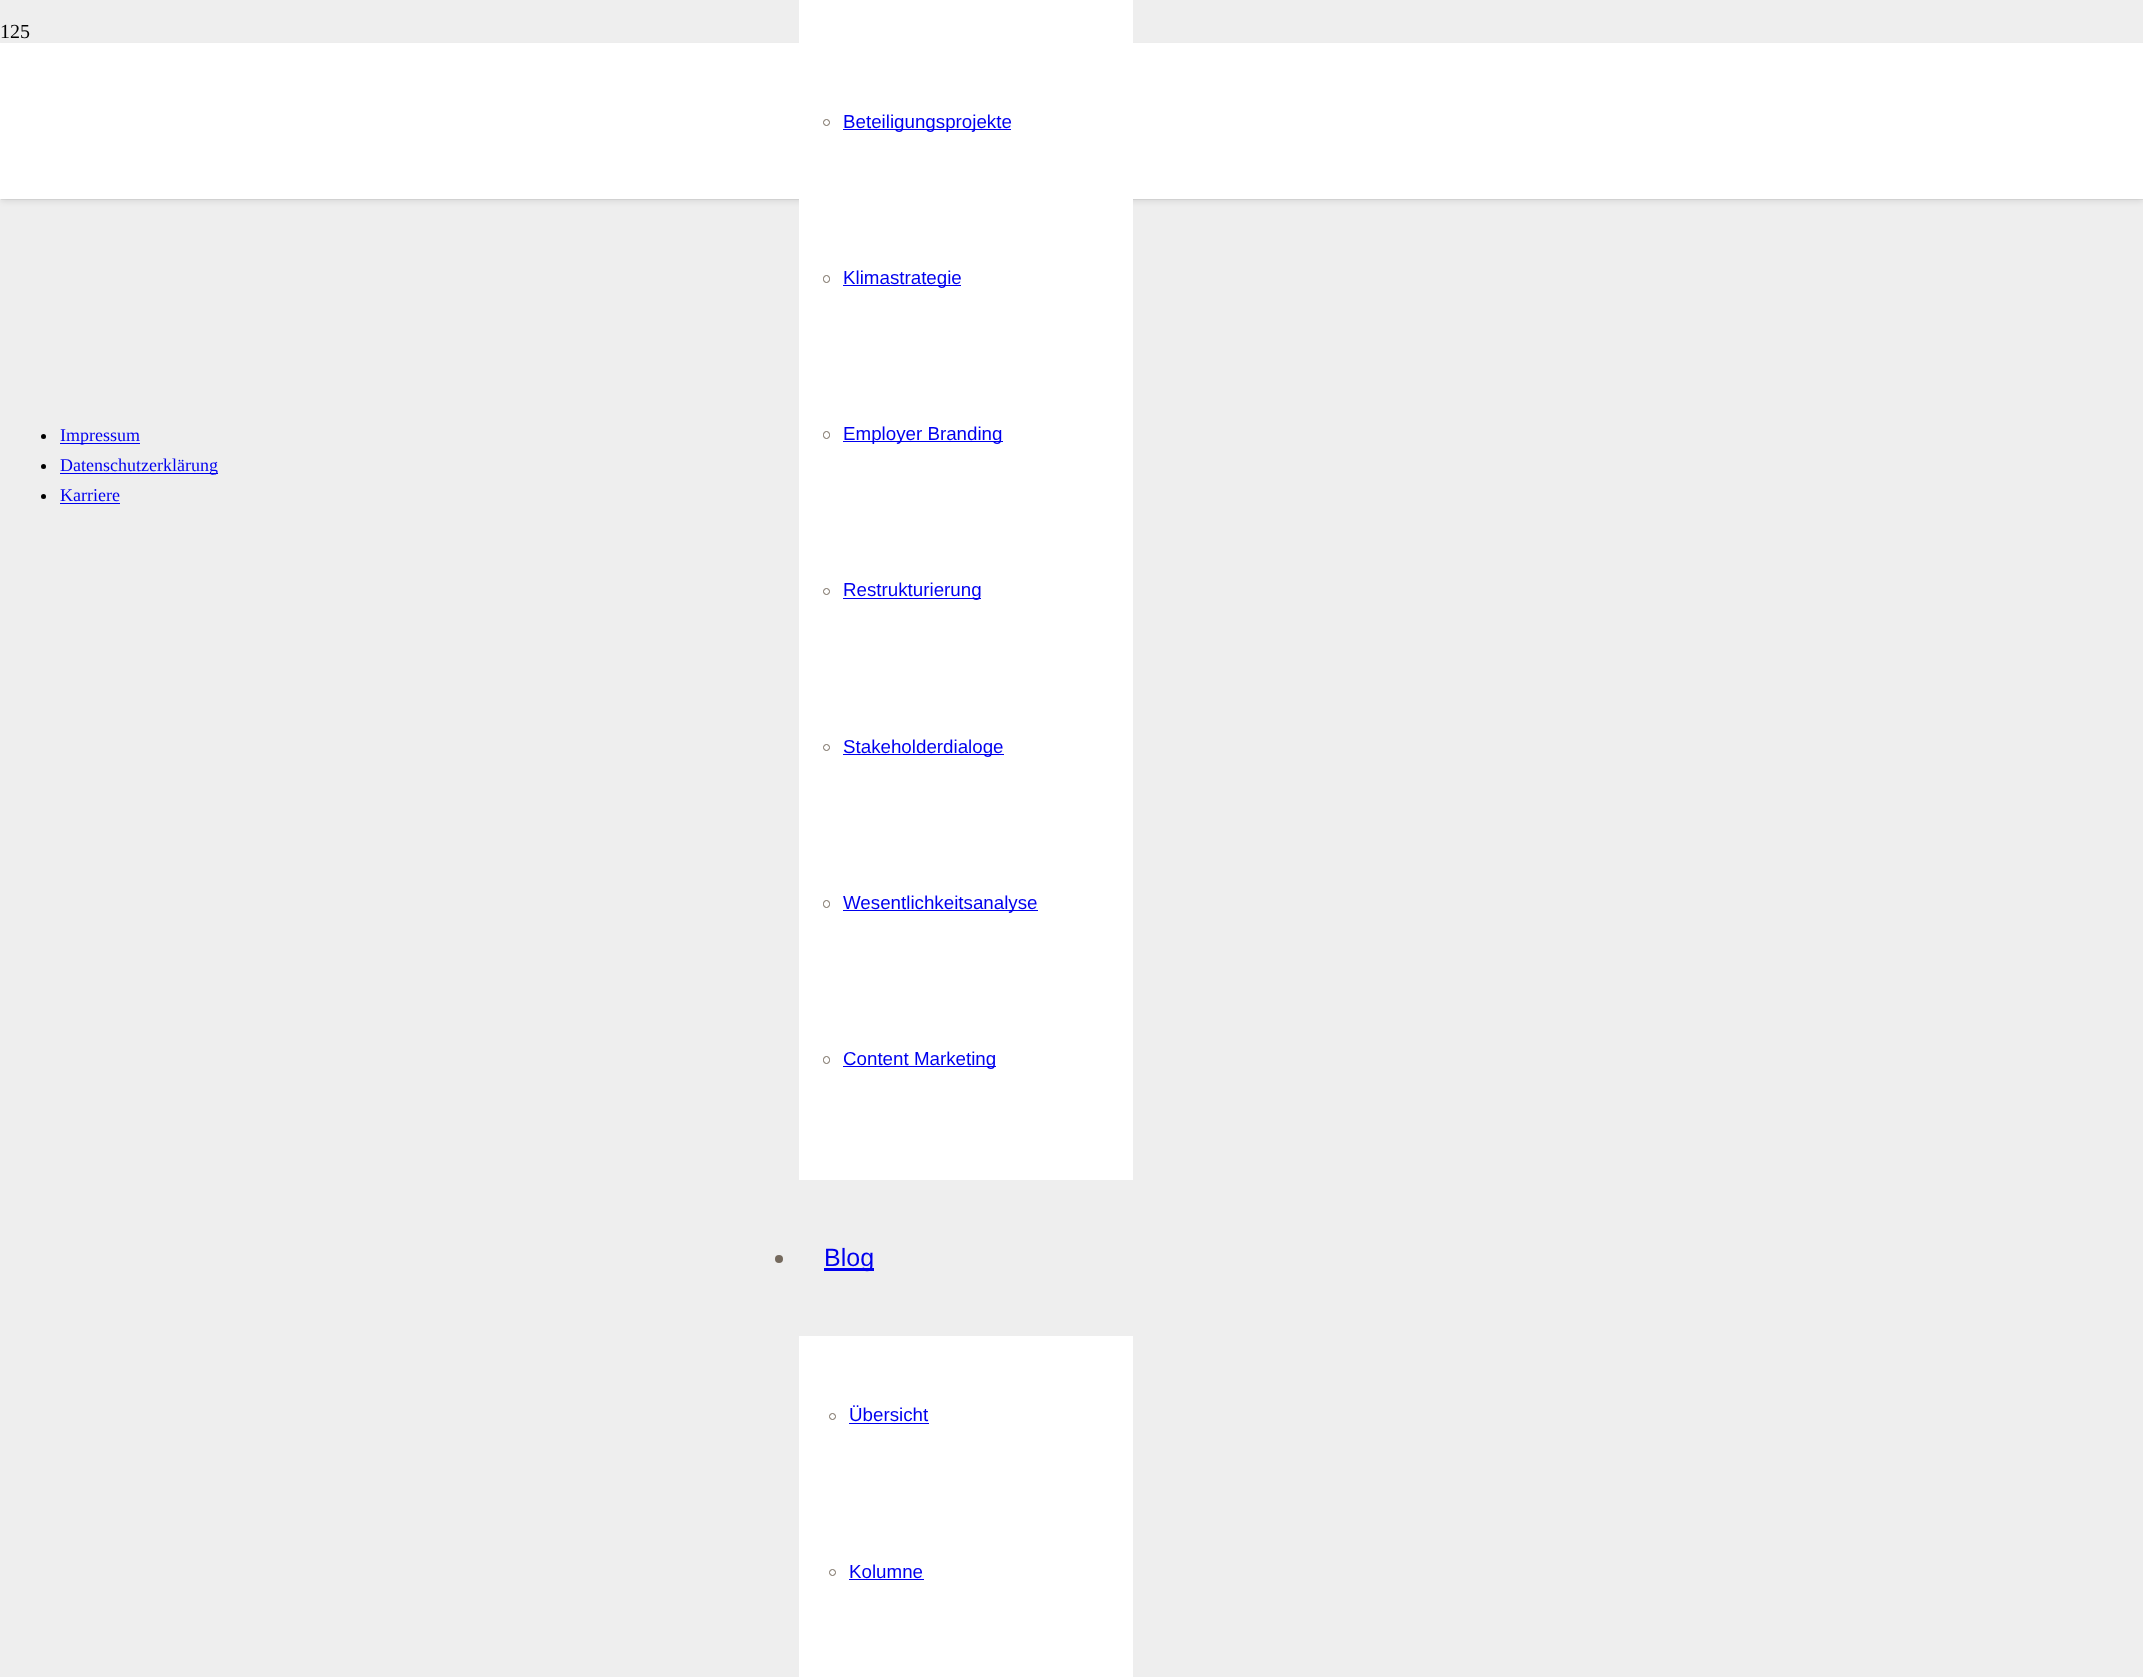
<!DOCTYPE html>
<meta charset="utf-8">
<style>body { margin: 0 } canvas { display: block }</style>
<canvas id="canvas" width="2143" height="1677"></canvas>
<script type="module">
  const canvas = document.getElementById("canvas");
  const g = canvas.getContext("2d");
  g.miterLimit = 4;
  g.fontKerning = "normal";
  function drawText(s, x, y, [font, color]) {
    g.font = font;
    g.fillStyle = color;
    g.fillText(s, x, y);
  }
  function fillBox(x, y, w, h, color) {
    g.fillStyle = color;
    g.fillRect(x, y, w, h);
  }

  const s1 = ["20px Liberation Serif", "#000000"];
  const s2 = ["18.75px Liberation Sans", "#0000EE"];
  const s3 = ["25px Liberation Sans", "#0000EE"];
  const s4 = ["18px Liberation Serif", "#0000EE"];

  fillBox(0, 0, 2143, 1677, "#EEEEEE");
  g.fillStyle = "rgba(0, 0, 0, 0.1)";
  g.filter = "blur(3px)";
  g.beginPath();
  g.rect(1, 48, 2142, 153);
  g.fill();
  g.filter = "none";
  drawText("125", 0, 38, s1);
  g.fillStyle = "rgba(0, 0, 0, 0.05)";
  g.filter = "blur(0.5px)";
  g.beginPath();
  g.rect(1, 46, 2142, 154);
  g.fill();
  g.filter = "none";
  fillBox(0, 43, 2143, 156, "#FFFFFF");
  fillBox(799, 0, 334, 1180, "#FFFFFF");
  g.beginPath();
  g.arc(826.5, 122.5, 3, 0, Math.PI * 2);
  g.strokeStyle = "#74695D";
  g.stroke();
  fillBox(843, 129, 168, 1, "#0000EE");
  drawText("Beteiligungsprojekte", 843, 128, s2);
  g.beginPath();
  g.roundRect(823.5, 275.5, 6, 7, 3);
  g.stroke();
  fillBox(843, 285, 118, 1, "#0000EE");
  drawText("Klimastrategie", 843, 284, s2);
  g.beginPath();
  g.roundRect(823.5, 431.5, 6, 7, 3);
  g.stroke();
  fillBox(843, 441, 160, 1, "#0000EE");
  drawText("Employer Branding", 843, 440, s2);
  g.beginPath();
  g.arc(826.5, 591.5, 3, 0, Math.PI * 2);
  g.stroke();
  fillBox(843, 598, 138, 1, "#0000EE");
  drawText("Restrukturierung", 843, 596, s2);
  g.beginPath();
  g.arc(826.5, 747.5, 3, 0, Math.PI * 2);
  g.stroke();
  fillBox(843, 754, 161, 1, "#0000EE");
  drawText("Stakeholderdialoge", 843, 753, s2);
  g.beginPath();
  g.roundRect(823.5, 900.5, 6, 7, 3);
  g.stroke();
  fillBox(843, 910, 195, 1, "#0000EE");
  drawText("Wesentlichkeitsanalyse", 843, 909, s2);
  g.beginPath();
  g.roundRect(823.5, 1056.5, 6, 7, 3);
  g.stroke();
  fillBox(843, 1066, 153, 1, "#0000EE");
  drawText("Content Marketing", 843, 1065, s2);
  g.fillStyle = "#74695D";
  g.beginPath();
  g.arc(779, 1259, 4, 0, Math.PI * 2);
  g.fill();
  fillBox(824, 1268, 50, 3, "#0000EE");
  drawText("Blog", 824, 1266, s3);
  fillBox(799, 1336, 334, 341, "#FFFFFF");
  g.beginPath();
  g.arc(832.5, 1416.5, 3, 0, Math.PI * 2);
  g.stroke();
  drawText("Übersicht", 849, 1421, s2);
  fillBox(849, 1423, 80, 1, "#0000EE");
  g.beginPath();
  g.arc(832.5, 1572.5, 3, 0, Math.PI * 2);
  g.stroke();
  drawText("Kolumne", 849, 1578, s2);
  fillBox(849, 1579, 75, 1, "#0000EE");
  g.fillStyle = "#000000";
  g.beginPath();
  g.arc(43.5, 436.5, 2.5, 0, Math.PI * 2);
  g.fill();
  fillBox(60, 443, 80, 1, "#0000EE");
  drawText("Impressum", 60, 441, s4);
  g.fillStyle = "#000000";
  g.beginPath();
  g.arc(43.5, 466.5, 2.5, 0, Math.PI * 2);
  g.fill();
  fillBox(60, 473, 158, 1, "#0000EE");
  drawText("Datenschutzerklärung", 60, 471, s4);
  g.fillStyle = "#000000";
  g.beginPath();
  g.arc(43.5, 496.5, 2.5, 0, Math.PI * 2);
  g.fill();
  drawText("Karriere", 60, 501, s4);
  fillBox(60, 503, 60, 1, "#0000EE");
</script>
